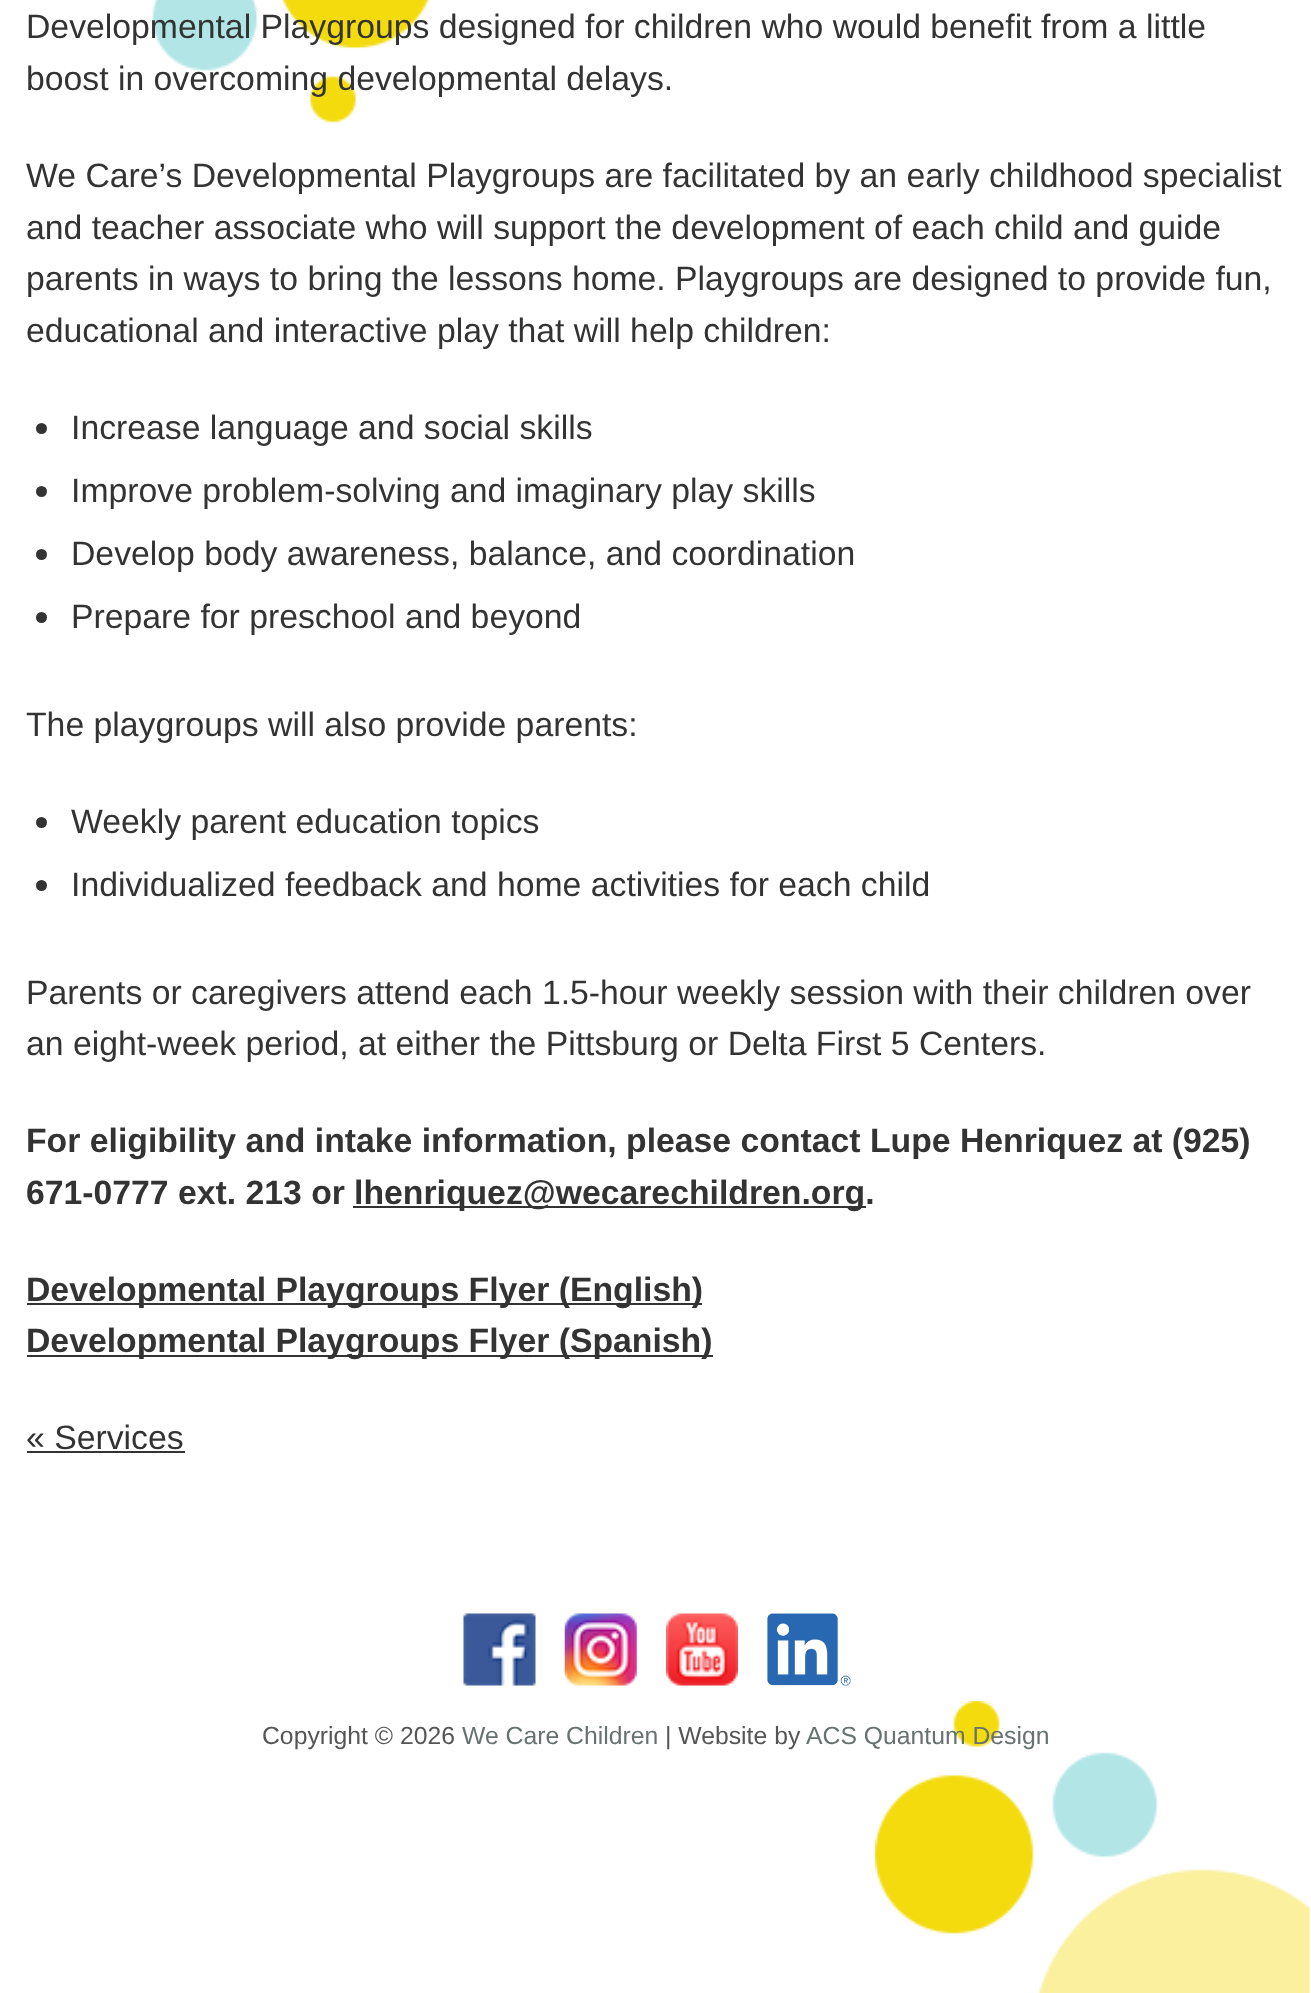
<!DOCTYPE html>
<meta charset="utf-8">
<style>body { margin: 0 } canvas { display: block }</style>
<canvas id="canvas" width="1311" height="1993"></canvas>
<script type="module">
  const canvas = document.getElementById("canvas");
  const g = canvas.getContext("2d");
  g.miterLimit = 4;
  g.fontKerning = "normal";
  function drawText(s, x, y, [font, color]) {
    g.font = font;
    g.fillStyle = color;
    g.fillText(s, x, y);
  }
  function fillBox(x, y, w, h, color) {
    g.fillStyle = color;
    g.fillRect(x, y, w, h);
  }
  async function drawPicture(src, x, y, w, h) {
    const img = new Image();
    img.src = src;
    await img.decode();
    g.drawImage(img, x, y, w, h);
  }

  const s1 = ["33.75px Liberation Sans", "#333333"];
  const s2 = ["bold 33.75px Liberation Sans", "#333333"];
  const s3 = ["24.75px Liberation Sans", "#555555"];
  const s4 = ["24.75px Liberation Sans", "#677170"];

  fillBox(0, 0, 1311, 1993, "#FFFFFF");
  await drawPicture("pic1.png", 152, 0, 1159, 1993);
  drawText("Developmental Playgroups designed for children who would benefit from a little", 26, 38, s1);
  drawText("boost in overcoming developmental delays.", 26, 90, s1);
  drawText("We Care’s Developmental Playgroups are facilitated by an early childhood specialist", 26, 187, s1);
  drawText("and teacher associate who will support the development of each child and guide", 26, 239, s1);
  drawText("parents in ways to bring the lessons home. Playgroups are designed to provide fun,", 26, 290, s1);
  drawText("educational and interactive play that will help children:", 26, 342, s1);
  g.beginPath();
  g.arc(41.5, 428.5, 5.5, 0, Math.PI * 2);
  g.fill();
  drawText("Increase language and social skills", 71, 439, s1);
  g.beginPath();
  g.arc(41.5, 491.5, 5.5, 0, Math.PI * 2);
  g.fill();
  drawText("Improve problem-solving and imaginary play skills", 71, 502, s1);
  g.beginPath();
  g.arc(41.5, 554.5, 5.5, 0, Math.PI * 2);
  g.fill();
  drawText("Develop body awareness, balance, and coordination", 71, 565, s1);
  g.beginPath();
  g.arc(41.5, 617.5, 5.5, 0, Math.PI * 2);
  g.fill();
  drawText("Prepare for preschool and beyond", 71, 628, s1);
  drawText("The playgroups will also provide parents:", 26, 736, s1);
  g.beginPath();
  g.arc(41.5, 822.5, 5.5, 0, Math.PI * 2);
  g.fill();
  drawText("Weekly parent education topics", 71, 833, s1);
  g.beginPath();
  g.arc(41.5, 885.5, 5.5, 0, Math.PI * 2);
  g.fill();
  drawText("Individualized feedback and home activities for each child", 71, 896, s1);
  drawText("Parents or caregivers attend each 1.5-hour weekly session with their children over", 26, 1004, s1);
  drawText("an eight-week period, at either the Pittsburg or Delta First 5 Centers.", 26, 1055, s1);
  drawText("For eligibility and intake information, please contact Lupe Henriquez at (925)", 26, 1152, s2);
  drawText("671-0777 ext. 213 or", 26, 1204, s2);
  fillBox(353, 1206, 513, 2, "#333333");
  drawText("lhenriquez@wecarechildren.org.", 354, 1204, s2);
  fillBox(27, 1303, 675, 2, "#333333");
  drawText("Developmental Playgroups Flyer (English)", 26, 1301, s2);
  fillBox(27, 1355, 686, 2, "#333333");
  drawText("Developmental Playgroups Flyer (Spanish)", 26, 1352, s2);
  drawText("« Services", 26, 1449, s1);
  fillBox(27, 1451, 158, 2, "#333333");
  await drawPicture("pic2.png", 463, 1613, 73, 73);
  await drawPicture("pic3.png", 564, 1613, 73, 73);
  await drawPicture("pic4.png", 666, 1613, 72, 73);
  await drawPicture("pic5.png", 767, 1613, 84, 73);
  drawText("Copyright © 2026", 262, 1744, s3);
  drawText("We Care Children", 462, 1744, s4);
  drawText("| Website by", 665, 1744, s3);
  drawText("ACS Quantum Design", 806, 1744, s4);
</script>
